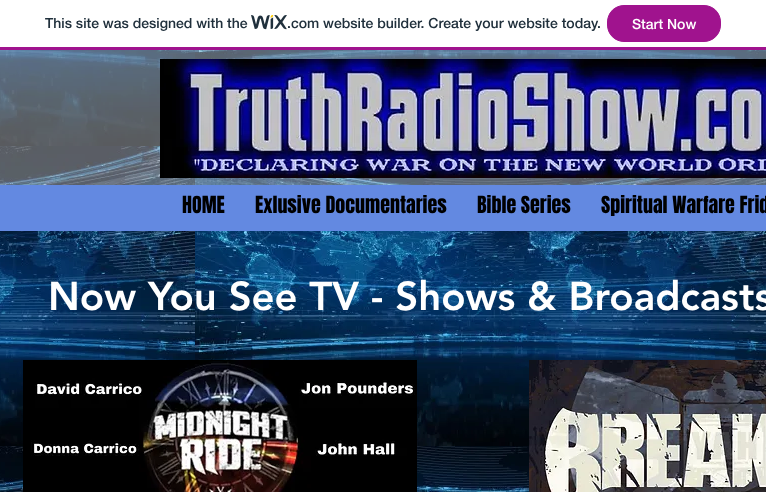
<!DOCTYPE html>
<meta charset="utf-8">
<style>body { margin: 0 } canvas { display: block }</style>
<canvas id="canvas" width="766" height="492"></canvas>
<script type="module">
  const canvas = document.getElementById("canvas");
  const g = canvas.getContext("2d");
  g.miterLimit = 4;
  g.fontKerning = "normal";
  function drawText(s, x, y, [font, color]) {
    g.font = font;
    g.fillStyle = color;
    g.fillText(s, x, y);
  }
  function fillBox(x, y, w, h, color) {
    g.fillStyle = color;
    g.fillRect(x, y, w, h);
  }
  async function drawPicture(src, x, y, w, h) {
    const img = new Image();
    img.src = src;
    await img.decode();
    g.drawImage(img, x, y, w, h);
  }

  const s1 = ["500 14px 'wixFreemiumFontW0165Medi'", "#20303C"];
  const s2 = ["500 14px 'wixFreemiumFontW0165Medi'", "#FFFFFF"];
  const s3 = ["20px Anton", "#000000"];
  const s4 = ["900 40px 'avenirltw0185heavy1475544'", "#FFFFFF"];

  fillBox(0, 0, 766, 492, "#FFFFFF");
  fillBox(0, 47, 766, 3, "#A0138E");
  drawText("This site was designed with the", 45, 28, s1);
  await drawPicture("pic1.png", 251, 15, 36, 15);
  drawText(".com website builder. Create your website today.", 287, 28, s1);
  g.fillStyle = "#A0138E";
  g.beginPath();
  g.roundRect(607.5, 5.5, 113, 36, 16.5);
  g.fill();
  g.strokeStyle = "#A0138E";
  g.stroke();
  drawText("Start Now", 632, 29, s2);
  await drawPicture("pic2.png", 0, 50, 766, 442);
  fillBox(0, 50, 766, 135, "rgba(255, 255, 255, 0.35)");
  await drawPicture("pic3.png", 160, 59, 606, 119);
  fillBox(0, 185, 766, 46, "#6389E1");
  drawText("HOME", 182, 213, s3);
  drawText("Exlusive Documentaries", 255, 213, s3);
  drawText("Bible Series", 477, 213, s3);
  drawText("Spiritual Warfare Frid", 601, 213, s3);
  drawText("Now You See TV - Shows & Broadcasts", 48, 310, s4);
  await drawPicture("pic4.png", 23, 360, 394, 132);
  await drawPicture("pic5.png", 529, 360, 237, 132);
</script>
